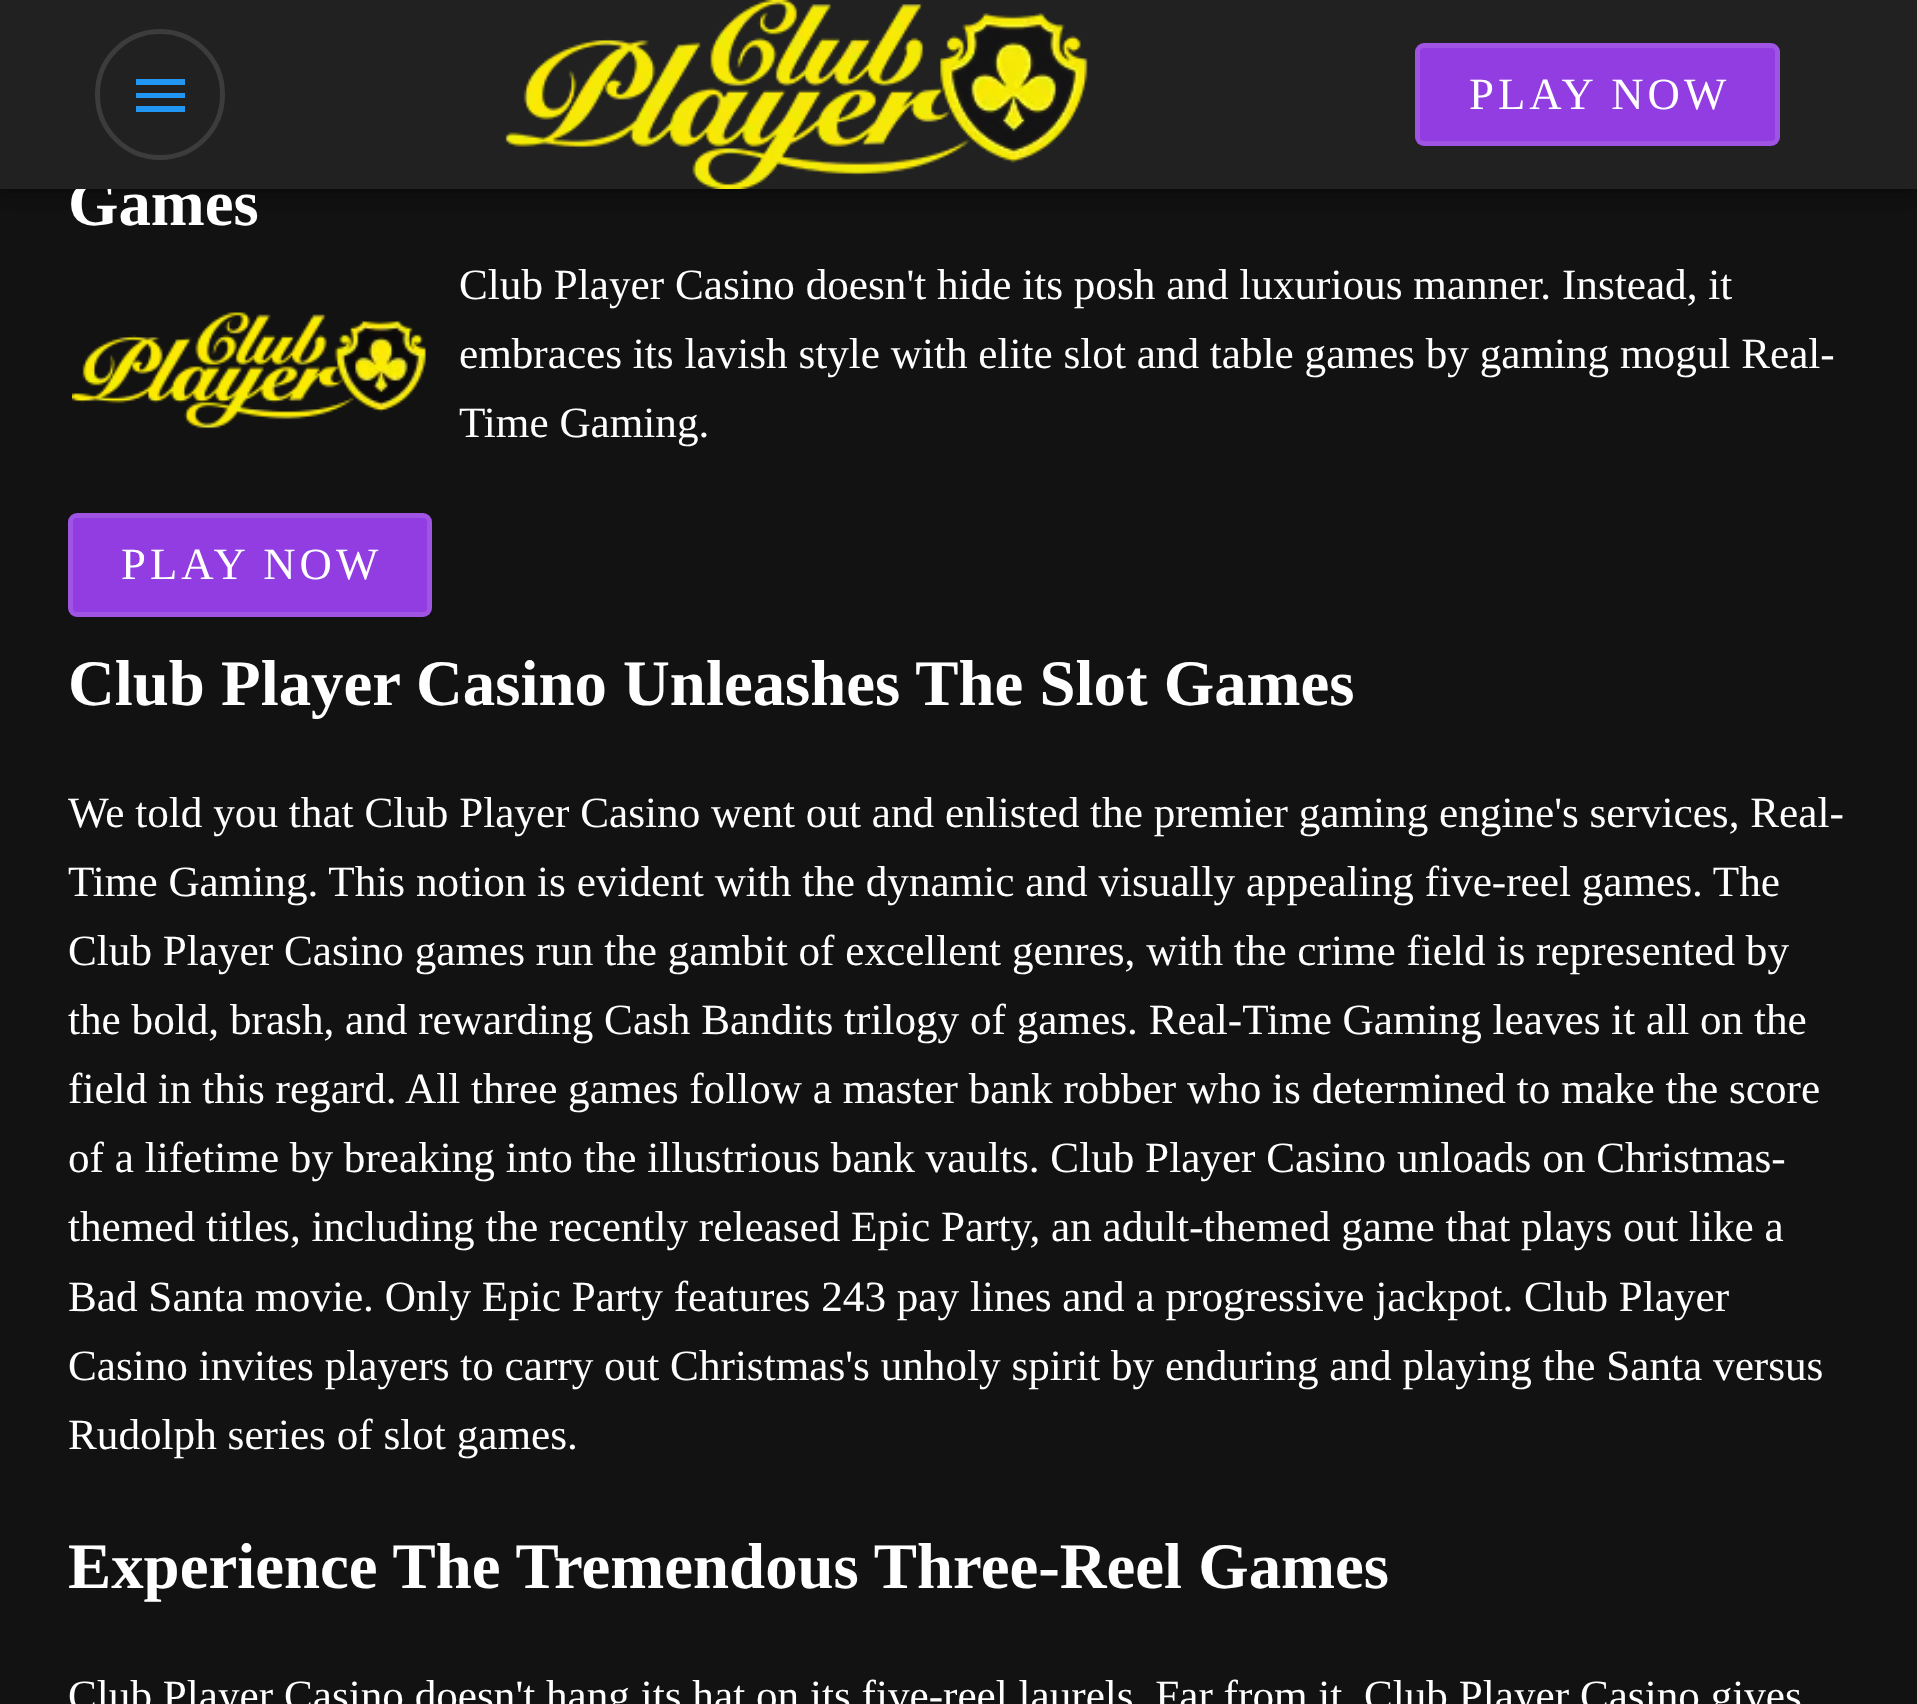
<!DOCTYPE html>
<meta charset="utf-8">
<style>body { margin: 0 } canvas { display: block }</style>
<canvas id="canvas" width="1917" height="1704"></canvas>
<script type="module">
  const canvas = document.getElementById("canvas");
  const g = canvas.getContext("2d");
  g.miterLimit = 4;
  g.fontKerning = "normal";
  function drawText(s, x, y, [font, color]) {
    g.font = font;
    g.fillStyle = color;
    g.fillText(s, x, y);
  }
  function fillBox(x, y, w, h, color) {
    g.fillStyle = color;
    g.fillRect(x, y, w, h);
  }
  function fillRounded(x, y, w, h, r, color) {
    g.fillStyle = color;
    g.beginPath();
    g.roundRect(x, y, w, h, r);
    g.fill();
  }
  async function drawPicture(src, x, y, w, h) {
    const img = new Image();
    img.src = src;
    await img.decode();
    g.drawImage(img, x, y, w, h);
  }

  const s1 = ["bold 64.8px Liberation Serif", "#FFFFFF"];
  const s2 = ["44.75px Liberation Serif", "#FFFFFF"];
  const s3 = ["43.2px Liberation Serif", "#FFFFFF"];

  fillBox(0, 0, 1917, 1704, "#121212");
  g.fillStyle = "rgba(0, 0, 0, 0.12)";
  g.filter = "blur(11px)";
  g.beginPath();
  g.rect(0, 2, 1917, 189);
  g.fill();
  g.filter = "none";
  g.fillStyle = "rgba(0, 0, 0, 0.14)";
  g.filter = "blur(5.5px)";
  g.beginPath();
  g.rect(0, 9, 1917, 189);
  g.fill();
  g.filter = "none";
  g.fillStyle = "rgba(0, 0, 0, 0.2)";
  g.filter = "blur(4.5px)";
  g.beginPath();
  g.rect(2, 7, 1913, 184);
  g.fill();
  g.filter = "none";
  drawText("Games", 68, 225, s1);
  fillBox(0, 0, 1917, 189, "#212121");
  g.beginPath();
  g.roundRect(97.5, 31.5, 125, 126, 62.5);
  g.strokeStyle = "#3C3C3C";
  g.lineWidth = 5;
  g.stroke();
  g.fillStyle = "#2196F3";
  g.beginPath();
  g.moveTo(136, 79);
  g.lineTo(185, 79);
  g.lineTo(185, 85);
  g.lineTo(136, 85);
  g.lineTo(136, 79);
  g.moveTo(136, 93);
  g.lineTo(185, 93);
  g.lineTo(185, 98);
  g.lineTo(136, 98);
  g.lineTo(136, 93);
  g.moveTo(136, 106);
  g.lineTo(185, 106);
  g.lineTo(185, 112);
  g.lineTo(136, 112);
  g.closePath();
  g.fill();
  await drawPicture("pic1.png", 505, 0, 583, 189);
  fillRounded(1415, 43, 365, 103, 9, "#923DE1");
  g.beginPath();
  g.roundRect(1417.5, 45.5, 360, 98, 6.5);
  g.strokeStyle = "rgba(255, 255, 255, 0.12)";
  g.stroke();
  g.letterSpacing = "4px";
  drawText("PLAY NOW", 1469, 109, s2);
  g.letterSpacing = "0px";
  drawText("Club Player Casino doesn't hide its posh and luxurious manner. Instead, it", 459, 299, s3);
  drawText("embraces its lavish style with elite slot and table games by gaming mogul Real-", 459, 368, s3);
  drawText("Time Gaming.", 459, 437, s3);
  drawText("Club Player Casino Unleashes The Slot Games", 68, 705, s1);
  drawText("We told you that Club Player Casino went out and enlisted the premier gaming engine's services, Real-", 68, 827, s3);
  drawText("Time Gaming. This notion is evident with the dynamic and visually appealing five-reel games. The", 68, 896, s3);
  drawText("Club Player Casino games run the gambit of excellent genres, with the crime field is represented by", 68, 965, s3);
  drawText("the bold, brash, and rewarding Cash Bandits trilogy of games. Real-Time Gaming leaves it all on the", 68, 1034, s3);
  drawText("field in this regard. All three games follow a master bank robber who is determined to make the score", 68, 1103, s3);
  drawText("of a lifetime by breaking into the illustrious bank vaults. Club Player Casino unloads on Christmas-", 68, 1172, s3);
  drawText("themed titles, including the recently released Epic Party, an adult-themed game that plays out like a", 68, 1241, s3);
  drawText("Bad Santa movie. Only Epic Party features 243 pay lines and a progressive jackpot. Club Player", 68, 1311, s3);
  drawText("Casino invites players to carry out Christmas's unholy spirit by enduring and playing the Santa versus", 68, 1380, s3);
  drawText("Rudolph series of slot games.", 68, 1449, s3);
  drawText("Experience The Tremendous Three-Reel Games", 68, 1588, s1);
  drawText("Club Player Casino doesn't hang its hat on its five-reel laurels. Far from it. Club Player Casino gives", 68, 1710, s3);
  await drawPicture("pic2.png", 72, 312, 354, 117);
  fillRounded(68, 513, 364, 104, 9, "#923DE1");
  g.beginPath();
  g.roundRect(70.5, 515.5, 359, 99, 6.5);
  g.stroke();
  g.letterSpacing = "4px";
  drawText("PLAY NOW", 121, 579, s2);
</script>
